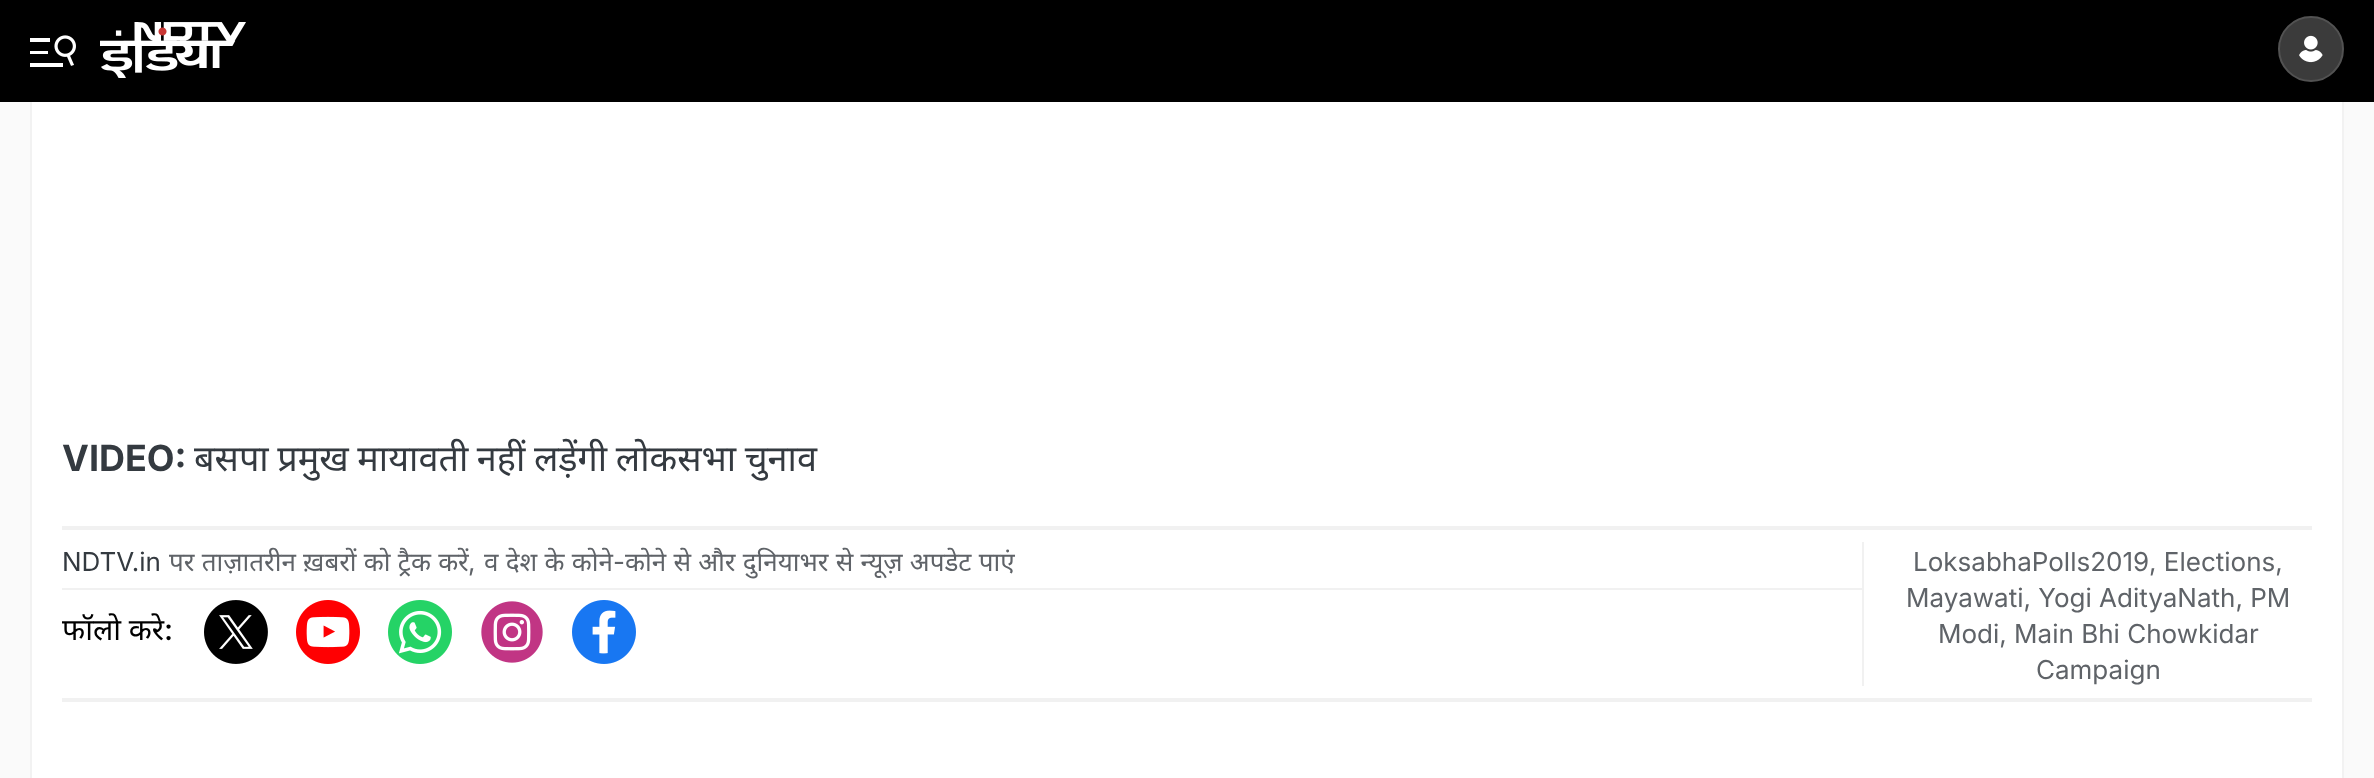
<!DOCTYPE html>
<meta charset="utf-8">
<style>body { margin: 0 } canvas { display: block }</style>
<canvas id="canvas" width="2374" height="778"></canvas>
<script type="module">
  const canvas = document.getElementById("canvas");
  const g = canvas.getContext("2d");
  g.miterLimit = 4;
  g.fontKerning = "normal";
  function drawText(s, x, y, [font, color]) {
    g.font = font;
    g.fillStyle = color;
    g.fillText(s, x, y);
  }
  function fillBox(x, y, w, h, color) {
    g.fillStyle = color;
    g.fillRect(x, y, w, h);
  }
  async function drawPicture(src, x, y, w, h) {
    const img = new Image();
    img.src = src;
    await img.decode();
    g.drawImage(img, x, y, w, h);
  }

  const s1 = ["bold 36px Inter", "#343A40"];
  const s2 = ["36px Noto Sans", "#343A40"];
  const s3 = ["26px Inter", "#343A40"];
  const s4 = ["26px Noto Sans", "#5F6368"];
  const s5 = ["26px Inter", "#5F6368"];
  const s6 = ["30px Noto Sans", "#000000"];
  const s7 = ["500 30px Inter", "#000000"];

  fillBox(0, 0, 2374, 778, "#FAFAFA");
  fillBox(32, 102, 2310, 676, "#FFFFFF");
  g.strokeStyle = "#F2F2F2";
  g.lineWidth = 2;
  g.strokeRect(31, -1, 2312, 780);
  fillBox(0, 0, 2374, 102, "#000000");
  await drawPicture("pic1.png", 30, 35, 46, 32);
  await drawPicture("pic2.png", 100, 22, 146, 56);
  g.fillStyle = "#3B3B3B";
  g.beginPath();
  g.arc(2311, 49, 32, 0, Math.PI * 2);
  g.fill();
  g.strokeStyle = "#525252";
  g.stroke();
  await drawPicture("pic3.png", 2299, 35, 24, 28);
  drawText("VIDEO:", 62, 471, s1);
  g.wordSpacing = "-0.75px";
  drawText("बसपा प्रमुख मायावती नहीं लड़ेंगी लोकसभा चुनाव", 194, 471, s2);
  fillBox(62, 526, 2250, 4, "#F1F1F1");
  fillBox(62, 698, 2250, 4, "#F1F1F1");
  fillBox(62, 588, 1800, 2, "#F1F1F1");
  g.wordSpacing = "0px";
  drawText("NDTV.in", 62, 571, s3);
  g.wordSpacing = "0.5px";
  drawText("पर ताज़ातरीन ख़बरों को ट्रैक करें", 169, 571, s4);
  drawText("व देश के कोने", 484, 571, s4);
  g.wordSpacing = "0px";
  drawText("-", 613, 571, s5);
  g.wordSpacing = "0.5px";
  drawText("कोने से और दुनियाभर से न्यूज़ अपडेट पाएं", 625, 571, s4);
  g.wordSpacing = "0px";
  drawText(",", 468, 571, s5);
  drawText("फॉलो करे", 62, 640, s6);
  drawText(":", 164, 640, s7);
  await drawPicture("pic4.png", 204, 600, 64, 64);
  await drawPicture("pic5.png", 296, 600, 64, 64);
  await drawPicture("pic6.png", 388, 600, 64, 64);
  await drawPicture("pic7.png", 481, 601, 62, 62);
  await drawPicture("pic8.png", 572, 600, 64, 64);
  fillBox(1862, 542, 2, 144, "#F1F1F1");
  drawText("LoksabhaPolls2019", 1913, 571, s5);
  drawText(", Elections,", 2149, 571, s5);
  drawText("Mayawati, Yogi AdityaNath, PM", 1906, 607, s5);
  drawText("Modi, Main Bhi Chowkidar", 1938, 643, s5);
  drawText("Campaign", 2036, 679, s5);
</script>
